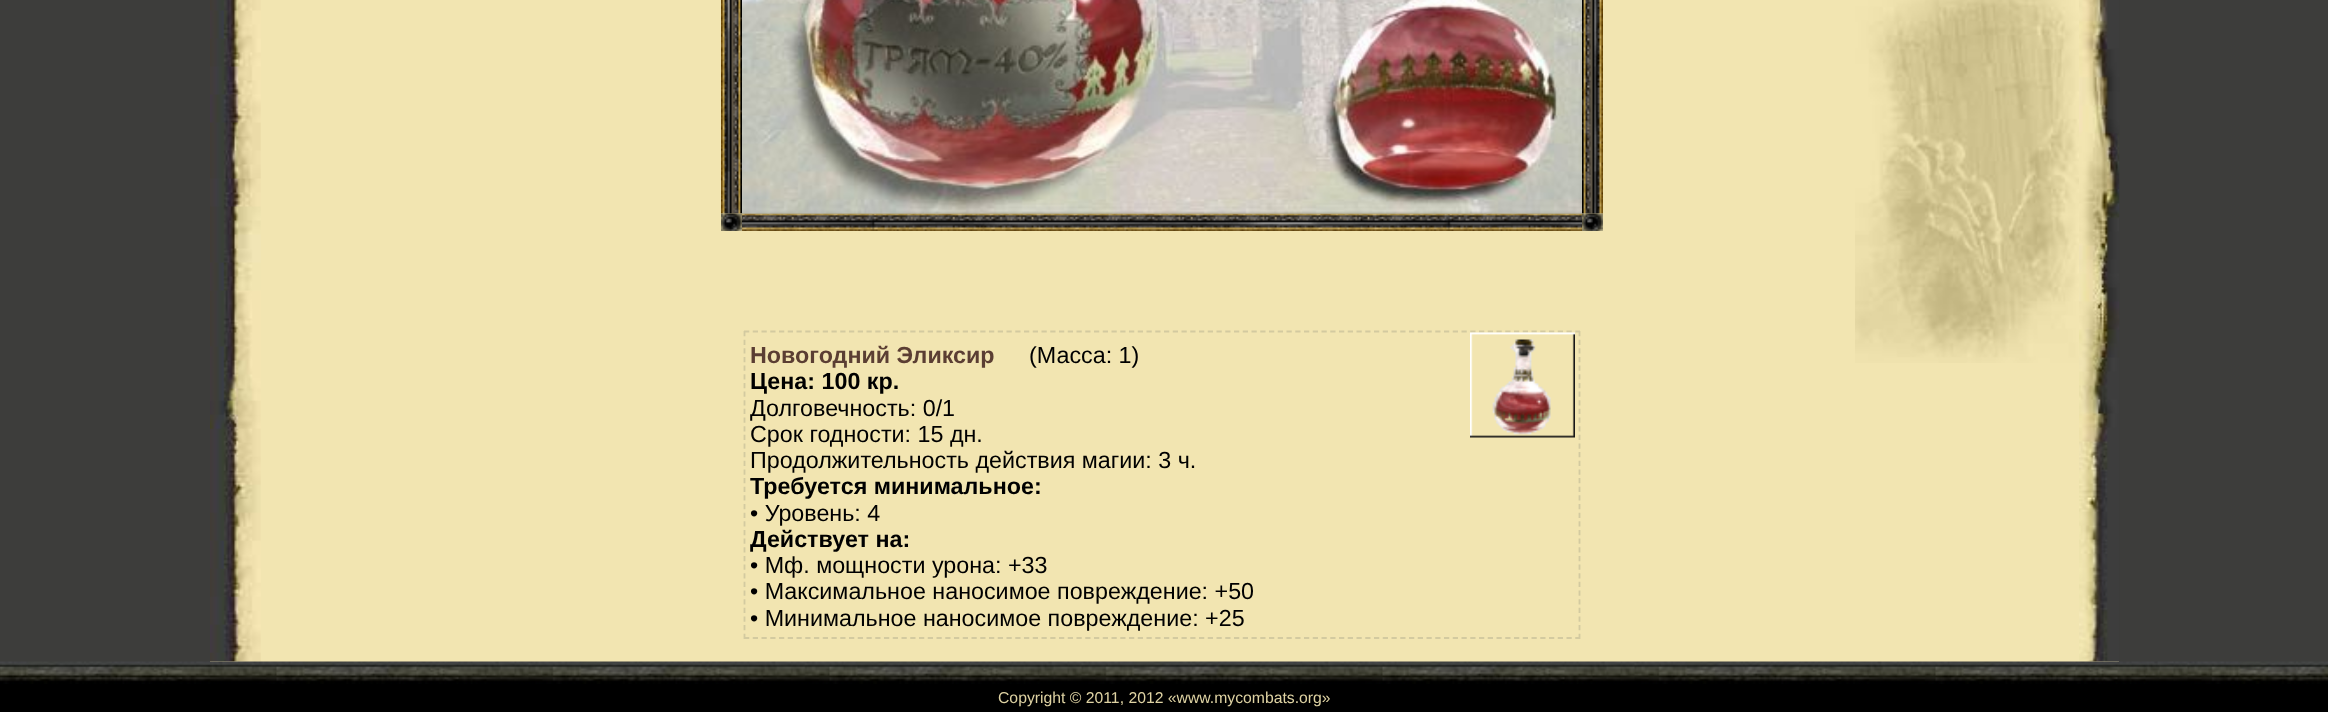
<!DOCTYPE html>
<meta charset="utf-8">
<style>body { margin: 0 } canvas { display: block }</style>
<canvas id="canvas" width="2328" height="712"></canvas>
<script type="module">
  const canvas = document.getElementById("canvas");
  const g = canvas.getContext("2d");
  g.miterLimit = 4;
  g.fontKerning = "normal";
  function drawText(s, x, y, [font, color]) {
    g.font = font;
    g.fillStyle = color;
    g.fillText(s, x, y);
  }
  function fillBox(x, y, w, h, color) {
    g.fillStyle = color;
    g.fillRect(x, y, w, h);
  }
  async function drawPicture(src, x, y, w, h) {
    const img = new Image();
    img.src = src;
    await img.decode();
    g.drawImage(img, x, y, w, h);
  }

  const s1 = ["bold 23.3px Liberation Sans", "#5B3E33"];
  const s2 = ["23.3px Liberation Sans", "#000000"];
  const s3 = ["bold 23.3px Liberation Sans", "#000000"];
  const s4 = ["15.75px Liberation Sans", "#DFD3A3"];

  fillBox(0, 0, 2328, 712, "#000000");
  fillBox(0, 0, 2328, 662, "#3D3D3B");
  fillBox(210, 0, 1909, 662, "#F2E5B1");
  await drawPicture("pic1.png", 210, 0, 51, 662);
  await drawPicture("pic2.png", 721, 0, 21, 214);
  await drawPicture("pic6.png", 742, 213, 840, 18);
  await drawPicture("pic3.png", 742, 0, 840, 214);
  await drawPicture("pic4.png", 1582, 0, 21, 214);
  await drawPicture("pic5.png", 721, 213, 21, 18);
  await drawPicture("pic7.png", 1582, 213, 21, 18);
  g.beginPath();
  g.moveTo(744, 331.5);
  g.lineTo(1580, 331.5);
  g.strokeStyle = "#D3CAA0";
  g.lineWidth = 1.8;
  g.setLineDash([5.25, 3.5]);
  g.stroke();
  g.beginPath();
  g.moveTo(1579.5, 331);
  g.lineTo(1579.5, 639);
  g.setLineDash([5.25, 3.4]);
  g.stroke();
  g.beginPath();
  g.moveTo(744, 638);
  g.lineTo(1580, 638);
  g.setLineDash([5.25, 3.5]);
  g.stroke();
  g.beginPath();
  g.moveTo(744.5, 331);
  g.lineTo(744.5, 639);
  g.setLineDash([5.25, 3.4]);
  g.stroke();
  drawText("Новогодний Эликсир", 750, 363, s1);
  drawText("(Масса: 1)", 1029, 363, s2);
  drawText("Цена: 100 кр.", 750, 389, s3);
  drawText("Долговечность: 0/1", 750, 416, s2);
  drawText("Срок годности: 15 дн.", 750, 442, s2);
  drawText("Продолжительность действия магии: 3 ч.", 750, 468, s2);
  drawText("Требуется минимальное:", 750, 494, s3);
  drawText("• Уровень: 4", 750, 521, s2);
  drawText("Действует на:", 750, 547, s3);
  drawText("• Мф. мощности урона: +33", 750, 573, s2);
  drawText("• Максимальное наносимое повреждение: +50", 750, 599, s2);
  drawText("• Минимальное наносимое повреждение: +25", 750, 626, s2);
  await drawPicture("pic8.png", 1470, 332, 105, 106);
  await drawPicture("pic9.png", 1855, 0, 224, 363);
  await drawPicture("pic10.png", 2079, 0, 41, 662);
  await drawPicture("pic11.png", 0, 661, 2328, 23);
  drawText("Copyright © 2011, 2012 «www.mycombats.org»", 998, 703, s4);
</script>
